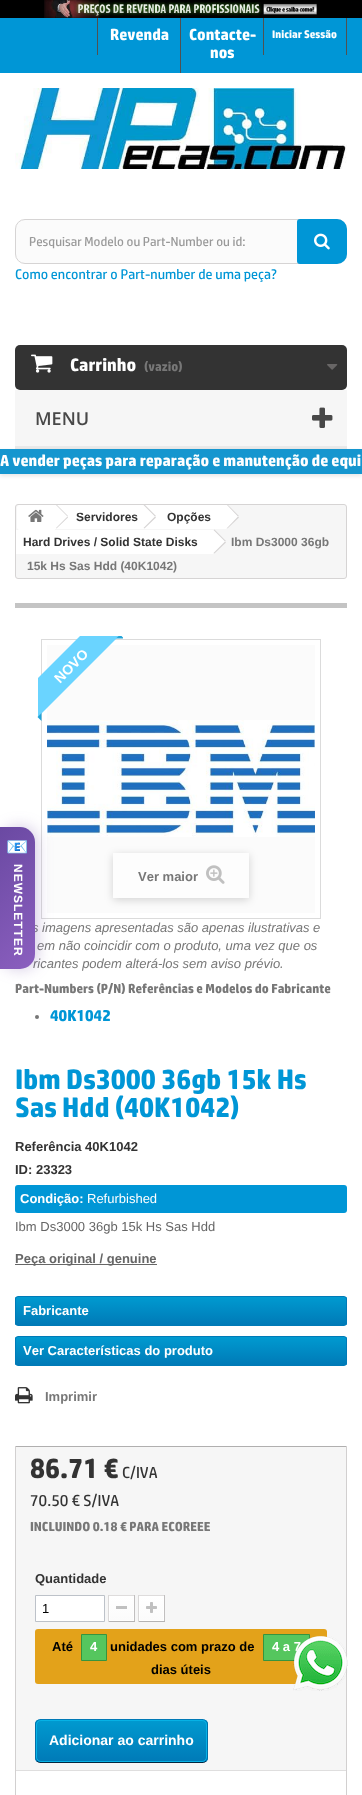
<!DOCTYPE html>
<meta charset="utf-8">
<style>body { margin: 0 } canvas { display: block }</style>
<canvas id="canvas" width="362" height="1795"></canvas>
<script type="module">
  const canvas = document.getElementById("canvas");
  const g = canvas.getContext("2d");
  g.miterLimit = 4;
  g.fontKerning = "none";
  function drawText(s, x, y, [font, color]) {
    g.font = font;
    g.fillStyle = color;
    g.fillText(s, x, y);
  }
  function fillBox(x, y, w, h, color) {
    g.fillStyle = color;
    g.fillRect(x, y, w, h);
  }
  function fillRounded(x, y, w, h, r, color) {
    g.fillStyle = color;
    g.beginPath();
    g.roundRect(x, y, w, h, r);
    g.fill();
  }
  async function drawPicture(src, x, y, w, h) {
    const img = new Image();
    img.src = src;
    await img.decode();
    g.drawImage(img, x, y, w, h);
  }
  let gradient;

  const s1 = ["bold 16px 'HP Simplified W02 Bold'", "#FFFFFF"];
  const s2 = ["bold 11px 'HP Simplified W02 Bold'", "#FFFFFF"];
  const s3 = ["13px 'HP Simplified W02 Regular'", "#999999"];
  const s4 = ["14px 'HP Simplified W02 Regular'", "#0096D6"];
  const s5 = ["bold 18px 'HP Simplified W02 Bold'", "#FFFFFF"];
  const s6 = ["bold 13px 'HP Simplified W02 Bold'", "#777777"];
  const s7 = ["600 18px Open Sans", "#484848"];
  const s8 = ["bold 12px Liberation Sans", "#333333"];
  const s9 = ["bold 12px Liberation Sans", "#777777"];
  const s10 = ["bold 13px Liberation Sans", "#777777"];
  const s11 = ["italic 13px Liberation Sans", "#777777"];
  const s12 = ["bold 16px 'HP Simplified W02 Bold'", "#0096D6"];
  const s13 = ["bold 28px 'HP Simplified W02 Bold'", "#0096D6"];
  const s14 = ["bold 13px Liberation Sans", "#333333"];
  const s15 = ["bold 13px Liberation Sans", "#FFFFFF"];
  const s16 = ["13px Liberation Sans", "#FFFFFF"];
  const s17 = ["13px Liberation Sans", "#666666"];
  const s18 = ["bold 13px Liberation Sans", "#666666"];
  const s19 = ["bold 28px 'HP Simplified W02 Bold'", "#333333"];
  const s20 = ["16px 'HP Simplified W02 Regular'", "#333333"];
  const s21 = ["13px Liberation Sans", "#000000"];
  const s22 = ["bold 13px Liberation Sans", "#000000"];
  const s23 = ["bold 14px Liberation Sans", "#FFFFFF"];
  const s24 = ["bold 18px Noto Color Emoji", "#FFFFFF"];

  fillBox(0, 0, 362, 1795, "#FFFFFF");
  fillBox(0, 0, 362, 18, "#000000");
  await drawPicture("pic1.png", 44, 0, 273, 18);
  fillBox(0, 18, 362, 55, "#0096D6");
  fillBox(97, 18, 1, 37, "#515151");
  drawText("Revenda", 110, 40, s1);
  fillBox(180, 18, 1, 55, "#515151");
  drawText("Contacte-", 189, 40, s1);
  drawText("nos", 210, 58, s1);
  fillBox(346, 18, 1, 37, "#515151");
  fillBox(263, 18, 1, 37, "#515151");
  drawText("Iniciar Sessão", 272, 38, s2);
  await drawPicture("pic2.png", 15, 88, 332, 81);
  g.fillStyle = "#FBFBFB";
  g.beginPath();
  g.roundRect(15.5, 219.5, 331, 44, 9.5);
  g.fill();
  g.strokeStyle = "#D6D4D4";
  g.stroke();
  drawText("Pesquisar Modelo ou Part-Number ou id:", 29, 246, s3);
  g.fillStyle = "#0096D6";
  g.beginPath();
  g.roundRect(297, 219, 50, 45, [3, 10, 10, 3]);
  g.fill();
  await drawPicture("pic3.png", 314, 233, 16, 17);
  drawText("Como encontrar o Part-number de uma peça?", 15, 279, s4);
  fillRounded(15, 345, 332, 45, 5, "#333333");
  await drawPicture("pic4.png", 31, 354, 22, 19);
  drawText("Carrinho", 70, 371, s5);
  drawText("(vazio)", 144, 371, s6);
  await drawPicture("pic5.png", 327, 364, 11, 6);
  fillBox(15, 390, 332, 56, "#F6F6F6");
  fillBox(15, 446, 332, 3, "#E9E9E9");
  drawText("MENU", 35, 425, s7);
  await drawPicture("pic6.png", 312, 407, 21, 21);
  g.fillStyle = "rgba(0, 0, 0, 0.1)";
  g.filter = "blur(2px)";
  g.beginPath();
  g.rect(0, 451, 362, 25);
  g.fill();
  g.filter = "none";
  fillBox(0, 449, 362, 25, "#1596CF");
  drawText("A vender peças para reparação e manutenção de equi", 0, 466, s1);
  g.fillStyle = "#F6F6F6";
  g.beginPath();
  g.roundRect(15.5, 504.5, 331, 74, 2.5);
  g.fill();
  g.stroke();
  g.fillStyle = "#FFFFFF";
  g.beginPath();
  g.roundRect(17, 505, 38, 25, [3, 0, 0, 3]);
  g.fill();
  await drawPicture("pic7.png", 28, 509, 16, 13);
  fillBox(55, 505, 90, 24, "#FFFFFF");
  g.fillStyle = "#D6D4D4";
  g.beginPath();
  g.moveTo(56.5, 504.5);
  g.lineTo(68, 516);
  g.lineTo(67.5, 516.5);
  g.lineTo(56, 505);
  g.closePath();
  g.fill();
  g.beginPath();
  g.moveTo(67.5, 516.5);
  g.lineTo(68, 517.5);
  g.lineTo(56.5, 528.5);
  g.lineTo(56, 528);
  g.closePath();
  g.fill();
  drawText("Servidores", 76, 521, s8);
  g.fillStyle = "#FFFFFF";
  g.beginPath();
  g.moveTo(155, 505);
  g.lineTo(152.5, 505);
  g.lineTo(142.5, 515);
  g.bezierCurveTo(141.5, 516, 141.5, 517, 142.5, 518);
  g.lineTo(152.5, 528);
  g.bezierCurveTo(153, 528.5, 154.5, 528.5, 155, 528);
  g.lineTo(165, 518);
  g.bezierCurveTo(166, 517, 166, 516, 165, 515);
  g.closePath();
  g.fill();
  fillBox(145, 505, 81, 24, "#FFFFFF");
  g.fillStyle = "#D6D4D4";
  g.beginPath();
  g.moveTo(145, 505);
  g.lineTo(156, 516);
  g.lineTo(155, 516.5);
  g.lineTo(143.5, 505);
  g.closePath();
  g.fill();
  g.beginPath();
  g.moveTo(155, 516.5);
  g.lineTo(156, 517.5);
  g.lineTo(144.5, 528.5);
  g.lineTo(143.5, 528);
  g.closePath();
  g.fill();
  drawText("Opções", 167, 521, s8);
  g.fillStyle = "#FFFFFF";
  g.beginPath();
  g.moveTo(228, 505);
  g.lineTo(225.5, 505);
  g.lineTo(215.5, 515);
  g.bezierCurveTo(214.5, 516, 214.5, 517, 215.5, 518);
  g.lineTo(225.5, 528);
  g.bezierCurveTo(226, 528.5, 227.5, 528.5, 228, 528);
  g.lineTo(238, 518);
  g.bezierCurveTo(239, 517, 239, 516, 238, 515);
  g.closePath();
  g.fill();
  g.fillStyle = "#D6D4D4";
  g.beginPath();
  g.moveTo(227.5, 504.5);
  g.lineTo(239, 516);
  g.lineTo(238, 516.5);
  g.lineTo(227, 505);
  g.closePath();
  g.fill();
  g.beginPath();
  g.moveTo(238, 516.5);
  g.lineTo(239, 517.5);
  g.lineTo(227.5, 528.5);
  g.lineTo(227, 528);
  g.closePath();
  g.fill();
  fillBox(16, 530, 197, 24, "#FFFFFF");
  drawText("Hard Drives / Solid State Disks", 23, 546, s8);
  g.fillStyle = "#FFFFFF";
  g.beginPath();
  g.moveTo(215, 530);
  g.lineTo(225, 540);
  g.bezierCurveTo(226, 541, 226, 542, 225, 543);
  g.lineTo(215, 553);
  g.bezierCurveTo(214.5, 553.5, 213, 553.5, 212.5, 553);
  g.lineTo(202.5, 543);
  g.bezierCurveTo(201.5, 542, 201.5, 541, 202.5, 540);
  g.lineTo(212.5, 530);
  g.bezierCurveTo(213, 529.5, 214.5, 529.5, 215, 530);
  g.closePath();
  g.fill();
  g.fillStyle = "#D6D4D4";
  g.beginPath();
  g.moveTo(214.5, 529.5);
  g.lineTo(226, 541);
  g.lineTo(225, 541.5);
  g.lineTo(213.5, 530);
  g.closePath();
  g.fill();
  g.beginPath();
  g.moveTo(225, 541.5);
  g.lineTo(226, 542.5);
  g.lineTo(214.5, 553.5);
  g.lineTo(213.5, 553);
  g.closePath();
  g.fill();
  drawText("Ibm Ds3000 36gb", 231, 546, s9);
  drawText("15k Hs Sas Hdd (40K1042)", 27, 570, s9);
  fillBox(15, 603, 332, 5, "#C4C4C4");
  g.strokeStyle = "#DBDBDB";
  g.strokeRect(41.5, 639.5, 279, 279);
  fillBox(47, 645, 268, 268, "#FBFBFB");
  g.save();
  g.beginPath();
  g.rect(38, 636, 85, 85);
  g.clip();
  g.fillStyle = "#6AD4FF";
  g.beginPath();
  g.moveTo(14, 702);
  g.lineTo(106, 610);
  g.lineTo(126, 629);
  g.lineTo(34, 721);
  g.closePath();
  g.fill();
  g.fillStyle = "#21A3D8";
  g.beginPath();
  g.moveTo(124, 638.5);
  g.lineTo(116, 638.5);
  g.lineTo(120, 634.5);
  g.closePath();
  g.fill();
  g.restore();
  g.font = "bold 14px Liberation Sans";
  g.fillStyle = "#FFFFFF";
  g.save();
  g.translate(60, 684);
  g.rotate(-45 * Math.PI / 180);
  g.fillText("NOVO", 0, 0);
  g.restore();
  g.fillStyle = "#21A3D8";
  g.beginPath();
  g.moveTo(41.5, 713);
  g.lineTo(41.5, 721);
  g.lineTo(37.5, 717);
  g.closePath();
  g.fill();
  await drawPicture("pic8.png", 47, 720, 268, 117);
  g.fillStyle = "rgba(0, 0, 0, 0.16)";
  g.filter = "blur(4px)";
  g.beginPath();
  g.rect(113, 855, 136, 45);
  g.fill();
  g.filter = "none";
  fillBox(113, 853, 136, 45, "#FDFDFD");
  drawText("Ver maior", 138, 881, s10);
  await drawPicture("pic9.png", 206, 865, 19, 19);
  drawText("s imagens apresentadas são apenas ilustrativas e", 32, 932, s11);
  drawText("em não coincidir com o produto, uma vez que os", 37, 950, s11);
  drawText("ricantes podem alterá-los sem aviso prévio.", 33, 968, s11);
  drawText("Part-Numbers (P/N) Referências e Modelos do Fabricante", 15, 993, s6);
  g.beginPath();
  g.arc(37, 1017, 2, 0, Math.PI * 2);
  g.fill();
  drawText("40K1042", 50, 1021, s12);
  drawText("Ibm Ds3000 36gb 15k Hs", 15, 1089, s13);
  drawText("Sas Hdd (40K1042)", 15, 1117, s13);
  drawText("Referência 40K1042", 15, 1151, s14);
  drawText("ID: 23323", 15, 1174, s14);
  fillRounded(15, 1185, 332, 28, 3, "#0096D6");
  drawText("Condição:", 20, 1203, s15);
  drawText("Refurbished", 87, 1203, s16);
  drawText("Ibm Ds3000 36gb 15k Hs Sas Hdd", 15, 1231, s17);
  fillBox(15, 1264, 142, 1, "#666666");
  drawText("Peça original / genuine", 15, 1263, s18);
  g.save();
  g.beginPath();
  g.roundRect(15, 1296, 332, 30, 3);
  g.clip();
  gradient = g.createLinearGradient(181, 1297, 181, 1325);
  gradient.addColorStop(0, "#009AD0");
  gradient.addColorStop(1, "#007AB7");
  g.fillStyle = gradient;
  g.fillRect(15, 1297, 332, 28);
  g.restore();
  g.beginPath();
  g.roundRect(15.5, 1296.5, 331, 29, 2.5);
  g.strokeStyle = "#007AB7";
  g.stroke();
  drawText("Fabricante", 23, 1315, s15);
  g.save();
  g.beginPath();
  g.roundRect(15, 1336, 332, 30, 3);
  g.clip();
  gradient = g.createLinearGradient(181, 1337, 181, 1365);
  gradient.addColorStop(0, "#009AD0");
  gradient.addColorStop(1, "#007AB7");
  g.fillStyle = gradient;
  g.fillRect(15, 1337, 332, 28);
  g.restore();
  g.beginPath();
  g.roundRect(15.5, 1336.5, 331, 29, 2.5);
  g.stroke();
  drawText("Ver Características do produto", 23, 1355, s15);
  await drawPicture("pic10.png", 15, 1387, 18, 17);
  drawText("Imprimir", 45, 1401, s10);
  fillBox(16, 1447, 330, 323, "#F6F6F6");
  fillBox(15, 1446, 332, 1, "#B0AFAF");
  fillBox(346, 1446, 1, 349, "#D2D0D0");
  fillBox(15, 1446, 1, 349, "#D2D0D0");
  drawText("86.71 €", 30, 1478, s19);
  drawText("C/IVA", 122, 1478, s20);
  drawText("70.50 € S/IVA", 30, 1506, s20);
  drawText("INCLUINDO 0.18 € PARA ECOREEE", 30, 1531, s6);
  drawText("Quantidade", 35, 1583, s14);
  g.fillStyle = "#FFFFFF";
  g.beginPath();
  g.rect(35.5, 1595.5, 69, 26);
  g.fill();
  g.strokeStyle = "#BDC2C9";
  g.stroke();
  drawText("1", 42, 1613, s21);
  fillBox(108, 1595, 27, 1, "#DEDCDC");
  fillBox(134, 1595, 1, 27, "#C1BFBF");
  fillBox(108, 1621, 27, 1, "#B5B4B4");
  fillBox(108, 1595, 1, 27, "#DAD8D8");
  gradient = g.createLinearGradient(122, 1597, 122, 1620);
  gradient.addColorStop(0, "#FFFFFF");
  gradient.addColorStop(1, "#FBFBFB");
  g.fillStyle = gradient;
  g.fillRect(110, 1597, 23, 23);
  g.strokeStyle = "#FFFFFF";
  g.strokeRect(109.5, 1596.5, 24, 24);
  fillBox(116, 1606, 11, 3, "#C0C0C0");
  fillBox(138, 1595, 27, 1, "#DEDCDC");
  fillBox(164, 1595, 1, 27, "#C1BFBF");
  fillBox(138, 1621, 27, 1, "#B5B4B4");
  fillBox(138, 1595, 1, 27, "#DAD8D8");
  gradient = g.createLinearGradient(152, 1597, 152, 1620);
  gradient.addColorStop(0, "#FFFFFF");
  gradient.addColorStop(1, "#FBFBFB");
  g.fillStyle = gradient;
  g.fillRect(140, 1597, 23, 23);
  g.strokeRect(139.5, 1596.5, 24, 24);
  await drawPicture("pic11.png", 146, 1602, 11, 11);
  fillRounded(35, 1629, 292, 55, 3, "#E3A21A");
  drawText("Até", 52, 1651, s22);
  g.fillStyle = "#55C65E";
  g.beginPath();
  g.rect(81.5, 1634.5, 25, 26);
  g.fill();
  g.strokeStyle = "#36943E";
  g.stroke();
  drawText("4", 90, 1651, s15);
  drawText("unidades com prazo de", 110, 1651, s22);
  g.fillStyle = "#55C65E";
  g.beginPath();
  g.rect(263.5, 1634.5, 46, 26);
  g.fill();
  g.stroke();
  drawText("4 a 7", 272, 1651, s15);
  drawText("dias úteis", 151, 1674, s22);
  g.save();
  g.beginPath();
  g.roundRect(35, 1719, 173, 44, 5);
  g.clip();
  gradient = g.createLinearGradient(122, 1720, 122, 1762);
  gradient.addColorStop(0, "#009AD0");
  gradient.addColorStop(1, "#007AB7");
  g.fillStyle = gradient;
  g.fillRect(35, 1720, 173, 42);
  g.restore();
  g.beginPath();
  g.moveTo(37, 1721);
  g.bezierCurveTo(37.5, 1720, 39, 1719.5, 40, 1719.5);
  g.lineTo(203, 1719.5);
  g.bezierCurveTo(204, 1719.5, 205.5, 1720, 206, 1721);
  g.strokeStyle = "#0079B6";
  g.stroke();
  g.beginPath();
  g.moveTo(206, 1721);
  g.bezierCurveTo(207, 1721.5, 207.5, 1723, 207.5, 1724);
  g.lineTo(207.5, 1758);
  g.bezierCurveTo(207.5, 1759, 207, 1760.5, 206, 1761);
  g.strokeStyle = "#006FA8";
  g.stroke();
  g.beginPath();
  g.moveTo(206, 1761);
  g.bezierCurveTo(205.5, 1762, 204, 1762.5, 203, 1762.5);
  g.lineTo(40, 1762.5);
  g.bezierCurveTo(39, 1762.5, 37.5, 1762, 37, 1761);
  g.strokeStyle = "#012740";
  g.stroke();
  g.beginPath();
  g.moveTo(37, 1761);
  g.bezierCurveTo(36, 1760.5, 35.5, 1759, 35.5, 1758);
  g.lineTo(35.5, 1724);
  g.bezierCurveTo(35.5, 1723, 36, 1721.5, 37, 1721);
  g.strokeStyle = "#006FA8";
  g.stroke();
  g.beginPath();
  g.roundRect(36.5, 1720.5, 170, 41, 4.5);
  g.strokeStyle = "#06B2E6";
  g.stroke();
  drawText("Adicionar ao carrinho", 49, 1745, s23);
  fillBox(16, 1770, 330, 1, "#DFDEDE");
  g.fillStyle = "rgba(106, 73, 162, 0.3)";
  g.filter = "blur(7.5px)";
  g.beginPath();
  g.roundRect(2, 827, 35, 142, 15);
  g.fill();
  g.filter = "none";
  gradient = g.createLinearGradient(-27, 853, 62, 942);
  gradient.addColorStop(0, "#6A49A2");
  gradient.addColorStop(1, "#8B5FBF");
  g.fillStyle = gradient;
  g.beginPath();
  g.roundRect(0, 827, 35, 142, [0, 15, 15, 0]);
  g.fill();
  g.letterSpacing = "1px";
  drawText("📧", 6, 853, s24);
  g.font = "bold 12px Liberation Sans";
  g.save();
  g.translate(14, 864);
  g.rotate(90 * Math.PI / 180);
  g.fillText("NEWSLETTER", 0, 0);
  g.restore();
  await drawPicture("pic12.png", 293, 1636, 55, 55);
</script>
